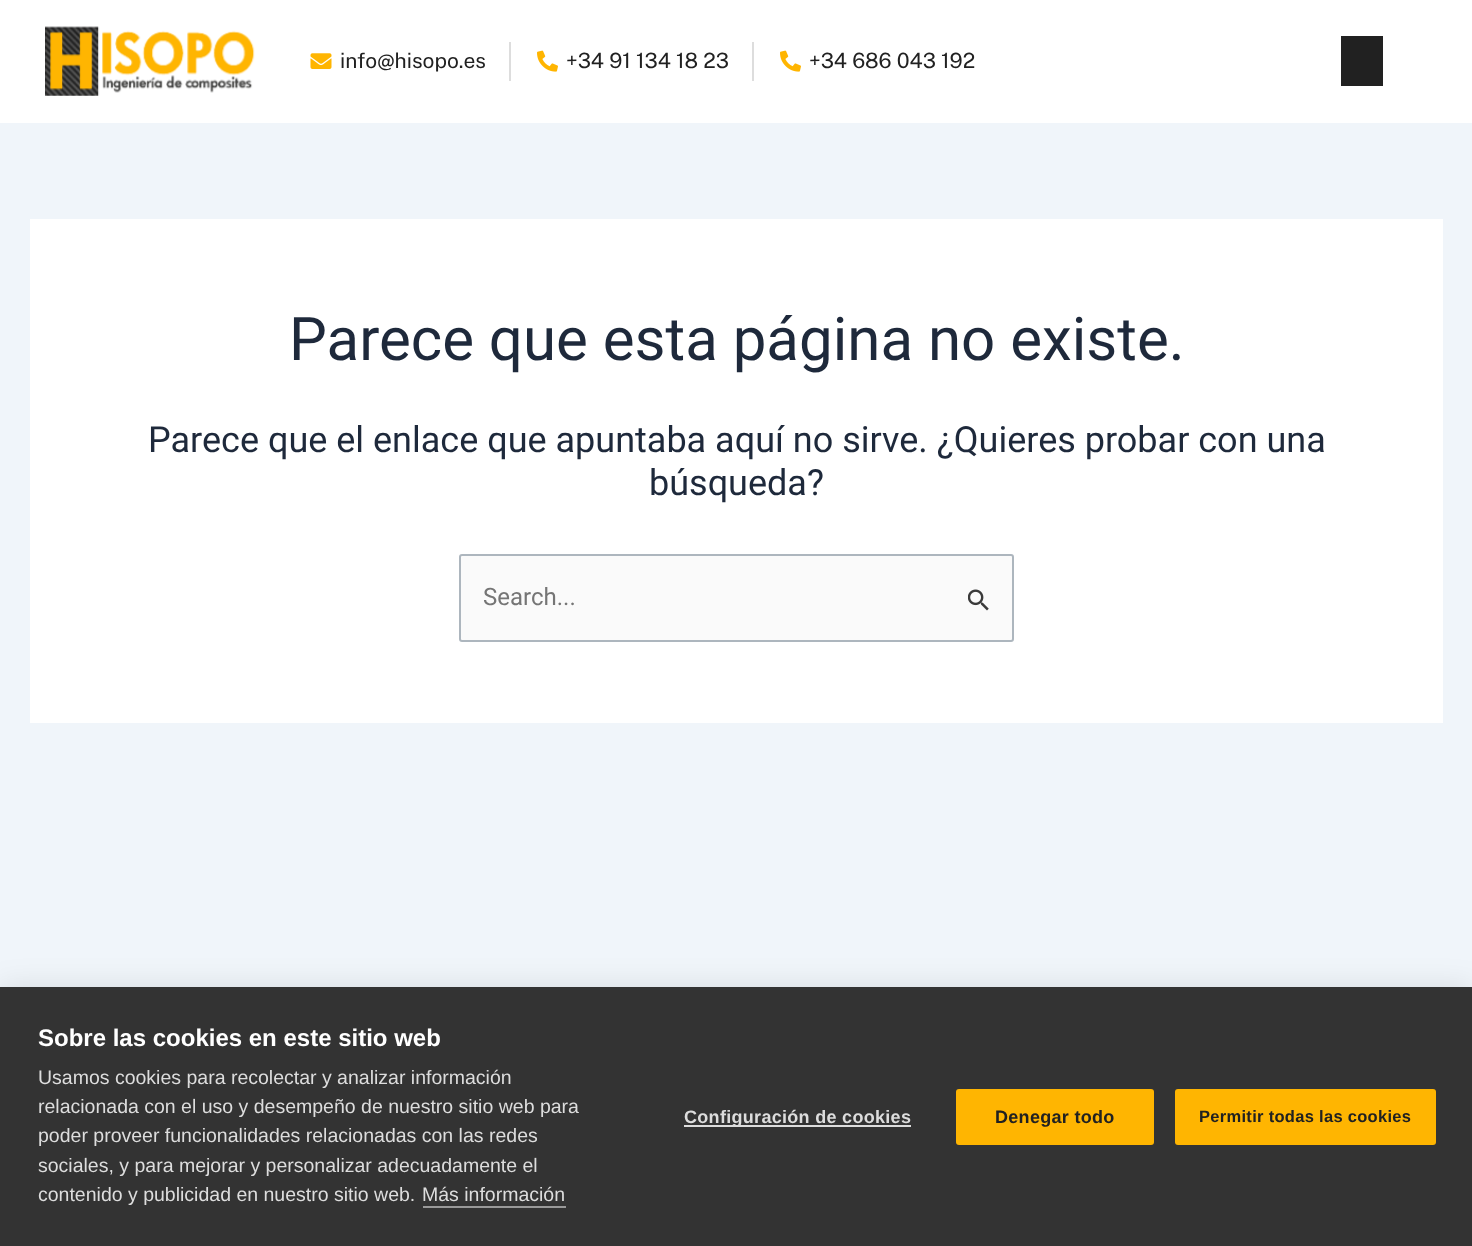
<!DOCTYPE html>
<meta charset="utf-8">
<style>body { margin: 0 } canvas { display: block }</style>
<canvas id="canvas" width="1472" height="1246"></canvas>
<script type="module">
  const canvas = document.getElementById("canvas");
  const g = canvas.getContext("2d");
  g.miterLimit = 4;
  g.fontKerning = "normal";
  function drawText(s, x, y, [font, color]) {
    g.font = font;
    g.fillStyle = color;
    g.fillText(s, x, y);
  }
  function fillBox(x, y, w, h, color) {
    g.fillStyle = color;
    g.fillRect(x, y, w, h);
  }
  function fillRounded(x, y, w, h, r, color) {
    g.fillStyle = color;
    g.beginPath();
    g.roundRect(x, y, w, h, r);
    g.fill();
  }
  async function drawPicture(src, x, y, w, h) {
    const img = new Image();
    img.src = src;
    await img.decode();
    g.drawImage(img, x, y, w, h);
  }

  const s1 = ["21px Public Sans", "#212121"];
  const s2 = ["60px Roboto", "#1E293B"];
  const s3 = ["36px Roboto", "#1E293B"];
  const s4 = ["24px Roboto", "#757575"];
  const s5 = ["bold 24px Liberation Sans", "#FFFFFF"];
  const s6 = ["19.5px Liberation Sans", "#DDDDDD"];
  const s7 = ["bold 18px Liberation Sans", "#DDDDDD"];
  const s8 = ["bold 18px Liberation Sans", "#212121"];
  const s9 = ["bold 16.5px Liberation Sans", "#212121"];

  fillBox(0, 0, 1472, 1246, "#F0F5FA");
  fillBox(0, 0, 1472, 123, "#FFFFFF");
  await drawPicture("pic1.png", 45, 26, 210, 70);
  await drawPicture("pic2.png", 310, 53, 22, 16);
  drawText("info@hisopo.es", 340, 68, s1);
  fillBox(509, 42, 2, 39, "#DDDDDD");
  await drawPicture("pic3.png", 537, 50, 21, 22);
  drawText("+34 91 134 18 23", 566, 68, s1);
  fillBox(752, 42, 2, 39, "#DDDDDD");
  await drawPicture("pic3.png", 780, 50, 21, 22);
  drawText("+34 686 043 192", 809, 68, s1);
  fillBox(1341, 36, 42, 50, "#212121");
  fillBox(30, 219, 1413, 504, "#FFFFFF");
  drawText("Parece que esta página no existe.", 289, 360, s2);
  drawText("Parece que el enlace que apuntaba aquí no sirve. ¿Quieres probar con una", 148, 452, s3);
  drawText("búsqueda?", 649, 495, s3);
  g.fillStyle = "#FAFAFA";
  g.beginPath();
  g.roundRect(460, 555, 553, 86, 2);
  g.fill();
  g.strokeStyle = "#ADB6BE";
  g.lineWidth = 2;
  g.stroke();
  drawText("Search...", 483, 605, s4);
  await drawPicture("pic4.png", 968, 589, 21, 22);
  g.fillStyle = "rgba(0, 0, 0, 0.1)";
  g.filter = "blur(15px)";
  g.beginPath();
  g.rect(0, 987, 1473, 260);
  g.fill();
  g.filter = "none";
  fillBox(0, 987, 1472, 259, "#333333");
  drawText("Sobre las cookies en este sitio web", 38, 1046, s5);
  drawText("Usamos cookies para recolectar y analizar información", 38, 1084, s6);
  drawText("relacionada con el uso y desempeño de nuestro sitio web para", 38, 1113, s6);
  drawText("poder proveer funcionalidades relacionadas con las redes", 38, 1142, s6);
  drawText("sociales, y para mejorar y personalizar adecuadamente el", 38, 1172, s6);
  drawText("contenido y publicidad en nuestro sitio web.", 38, 1201, s6);
  drawText("Más información", 422, 1201, s6);
  fillBox(423, 1206, 143, 2, "#999999");
  fillBox(684, 1125, 227, 2, "#DDDDDD");
  g.letterSpacing = "0.3px";
  drawText("Configuración de cookies", 684, 1123, s7);
  fillRounded(956, 1089, 198, 56, 3, "#FFB501");
  drawText("Denegar todo", 995, 1123, s8);
  fillRounded(1175, 1089, 261, 56, 3, "#FFB501");
  drawText("Permitir todas las cookies", 1199, 1122, s9);
</script>
